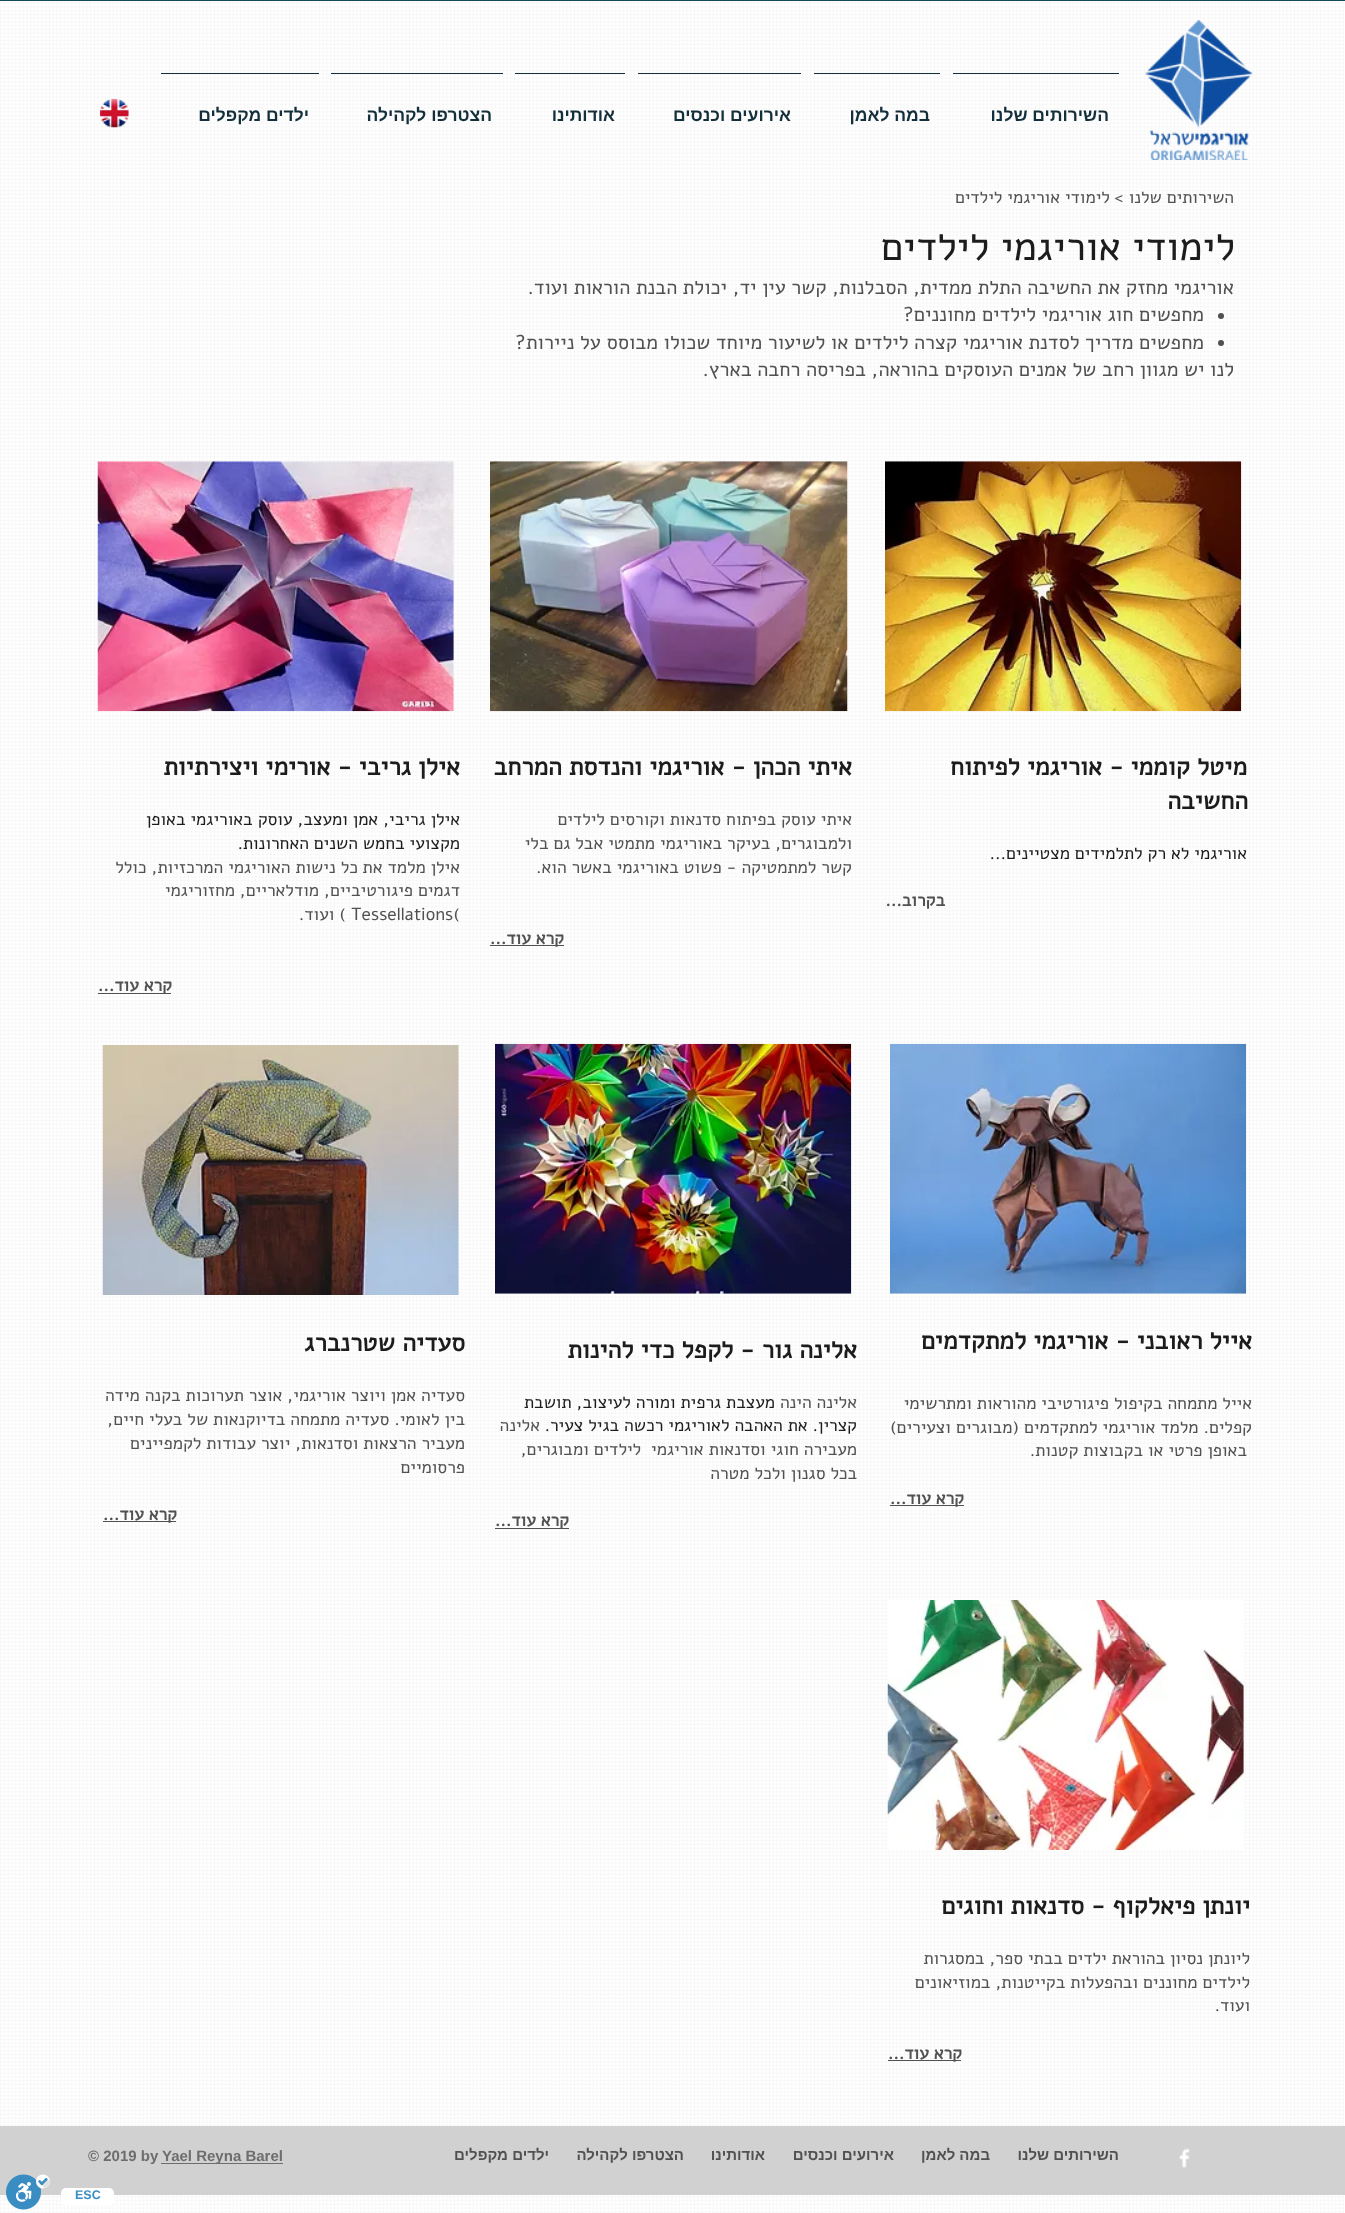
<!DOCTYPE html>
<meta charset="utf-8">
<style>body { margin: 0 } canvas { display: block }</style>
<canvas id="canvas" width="1345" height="2213"></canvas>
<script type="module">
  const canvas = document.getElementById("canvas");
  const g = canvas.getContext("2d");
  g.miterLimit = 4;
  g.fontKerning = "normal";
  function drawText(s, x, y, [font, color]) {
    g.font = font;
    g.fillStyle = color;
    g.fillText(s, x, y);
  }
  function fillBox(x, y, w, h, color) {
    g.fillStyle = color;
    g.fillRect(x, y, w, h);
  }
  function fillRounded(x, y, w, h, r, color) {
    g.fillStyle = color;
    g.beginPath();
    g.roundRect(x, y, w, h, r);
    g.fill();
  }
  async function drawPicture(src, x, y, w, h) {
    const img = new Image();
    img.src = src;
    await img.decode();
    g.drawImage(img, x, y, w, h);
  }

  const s1 = ["bold 17.5px Liberation Sans", "#132F3B"];
  const s2 = ["17.5px Alef", "#515151"];
  const s3 = ["40px Alef", "#1C1C1C"];
  const s4 = ["20px Alef", "#515151"];
  const s5 = ["bold 25px Alef", "#1C1C1C"];
  const s6 = ["17.5px Alef", "#1C1C1C"];
  const s7 = ["bold 17.5px Alef", "#515151"];
  const s8 = ["bold 15px Liberation Sans", "#515151"];
  const s9 = ["bold 15px Liberation Sans", "#6D6D6D"];
  const s10 = ["bold 12.5px Liberation Sans", "#3A8DC2"];

  fillBox(0, 0, 1345, 2213, "#FFFFFF");
  await drawPicture("pic1.png", 0, 2, 1344, 2211);
  await drawPicture("pic2.png", 1145, 20, 108, 140);
  fillBox(953, 73, 166, 1, "#132F3B");
  g.direction = "rtl";
  drawText("השירותים שלנו", 1109, 121, s1);
  fillBox(814, 73, 126, 1, "#132F3B");
  drawText("במה לאמן", 930, 121, s1);
  fillBox(638, 73, 163, 1, "#132F3B");
  drawText("אירועים וכנסים", 791, 121, s1);
  fillBox(515, 73, 110, 1, "#132F3B");
  drawText("אודותינו", 615, 121, s1);
  fillBox(331, 73, 172, 1, "#132F3B");
  drawText("הצטרפו לקהילה", 492, 121, s1);
  fillBox(161, 73, 158, 1, "#132F3B");
  drawText("ילדים מקפלים", 309, 121, s1);
  await drawPicture("pic3.png", 100, 98, 29, 30);
  drawText("השירותים שלנו", 1234, 203, s2);
  drawText("> לימודי אוריגמי לילדים", 1123, 203, s2);
  drawText("לימודי אוריגמי לילדים", 1235, 260, s3);
  drawText("אוריגמי מחזק את החשיבה התלת ממדית, הסבלנות, קשר עין יד, יכולת הבנת הוראות ועוד.", 1234, 294, s4);
  g.beginPath();
  g.arc(1221, 316, 3, 0, Math.PI * 2);
  g.fill();
  drawText("מחפשים חוג אוריגמי לילדים מחוננים?", 1204, 321, s4);
  g.beginPath();
  g.arc(1221, 343, 3, 0, Math.PI * 2);
  g.fill();
  drawText("מחפשים מדריך לסדנת אוריגמי קצרה לילדים או לשיעור מיוחד שכולו מבוסס על ניירות?", 1204, 349, s4);
  drawText("לנו יש מגוון רחב של אמנים העוסקים בהוראה, בפריסה רחבה בארץ.", 1234, 376, s4);
  await drawPicture("pic4.png", 885, 461, 357, 251);
  await drawPicture("pic5.png", 490, 461, 358, 251);
  await drawPicture("pic6.png", 97, 461, 357, 251);
  drawText("מיטל קוממי - אוריגמי לפיתוח", 1247, 775, s5);
  drawText("החשיבה", 1248, 809, s5);
  drawText("אוריגמי לא רק לתלמידים מצטיינים...", 1247, 859, s6);
  drawText("בקרוב...", 945, 906, s7);
  drawText("איתי הכהן - אוריגמי והנדסת המרחב", 852, 775, s5);
  drawText("איתי עוסק בפיתוח סדנאות וקורסים לילדים", 852, 825, s2);
  drawText("ולמבוגרים, בעיקר באוריגמי מתמטי אבל גם בלי", 852, 849, s2);
  drawText("קשר למתמטיקה - פשוט באוריגמי באשר הוא.", 852, 873, s2);
  fillBox(490, 945, 74, 1, "#515151");
  drawText("קרא עוד...", 564, 944, s7);
  drawText("אילן גריבי - אורימי ויצירתיות", 460, 775, s5);
  drawText("אילן גריבי, אמן ומעצב, עוסק באוריגמי באופן", 460, 825, s6);
  drawText("מקצועי בחמש השנים האחרונות.", 460, 849, s6);
  drawText("אילן מלמד את", 460, 873, s2);
  drawText("כל נישות האוריגמי המרכזיות, כולל", 358, 873, s2);
  drawText("דגמים פיגורטיביים, מודלאריים, מחזוריגמי", 460, 896, s2);
  g.direction = "ltr";
  drawText("Tessellations(", 351, 920, s2);
  g.direction = "rtl";
  drawText(") ועוד.", 346, 920, s2);
  fillBox(98, 993, 73, 1, "#515151");
  drawText("קרא עוד...", 172, 991, s7);
  await drawPicture("pic7.png", 890, 1043, 357, 251);
  await drawPicture("pic8.png", 495, 1043, 357, 251);
  await drawPicture("pic9.png", 102, 1045, 357, 250);
  drawText("אייל ראובני - אוריגמי למתקדמים", 1252, 1349, s5);
  drawText("אייל מתמחה בקיפול פיגורטיבי מהוראות ומתרשימי", 1252, 1409, s2);
  drawText("קפלים. מלמד אוריגמי למתקדמים (מבוגרים וצעירים)", 1252, 1433, s2);
  drawText("באופן פרטי או בקבוצות קטנות.", 1247, 1456, s2);
  fillBox(890, 1505, 74, 1, "#515151");
  drawText("קרא עוד...", 964, 1504, s7);
  drawText("אלינה גור - לקפל כדי להינות", 857, 1358, s5);
  drawText("אלינה הינה", 857, 1408, s2);
  drawText("מעצבת גרפית ומורה לעיצוב, תושבת", 775, 1408, s6);
  drawText("קצרין. את האהבה לאוריגמי רכשה בגיל צעיר.", 857, 1431, s6);
  drawText("אלינה", 540, 1431, s2);
  drawText("מעבירה חוגי וסדנאות אוריגמי  לילדים ומבוגרים,", 857, 1455, s2);
  drawText("בכ", 857, 1479, s2);
  drawText("ל סגנון ולכל מטרה", 839, 1479, s2);
  fillBox(495, 1528, 74, 1, "#515151");
  drawText("קרא עוד...", 569, 1526, s7);
  drawText("סעדיה שטרנברג", 465, 1351, s5);
  drawText("סעדיה אמן ויוצר אוריגמי, אוצר תערוכות בקנה מידה", 465, 1401, s2);
  drawText("בין לאומי. סעדיה מתמחה בדיוקנאות של בעלי חיים,", 465, 1425, s2);
  drawText("מעביר הרצאות וסדנאות, יוצר עבודות לקמפיינים", 465, 1449, s2);
  drawText("פרסומיים", 465, 1473, s2);
  fillBox(103, 1521, 73, 1, "#515151");
  drawText("קרא עוד...", 177, 1520, s7);
  await drawPicture("pic10.png", 887, 1600, 357, 250);
  drawText("יונתן פיאלקוף - סדנאות וחוגים", 1250, 1914, s5);
  drawText("ליונתן נסיון בהוראת ילדים בבתי ספר, במסגרות", 1250, 1964, s2);
  drawText("לילדים מחוננים ובהפעלות בקייטנות, במוזיאונים", 1250, 1988, s2);
  drawText("ועוד.", 1250, 2011, s2);
  fillBox(888, 2060, 73, 1, "#515151");
  drawText("קרא עוד...", 962, 2059, s7);
  fillBox(0, 2126, 1345, 69, "#D1D1D1");
  await drawPicture("pic11.png", 1179, 2148, 11, 20);
  drawText("השירותים שלנו", 1119, 2160, s8);
  drawText("במה לאמן", 990, 2160, s8);
  drawText("אירועים וכנסים", 894, 2160, s8);
  drawText("אודותינו", 765, 2160, s8);
  drawText("הצטרפו לקהילה", 684, 2160, s8);
  drawText("ילדים מקפלים", 549, 2160, s8);
  fillBox(161, 2163, 122, 1, "#6D6D6D");
  g.direction = "ltr";
  drawText("Yael Reyna Barel", 162, 2161, s9);
  drawText("© 2019 by", 88, 2161, s9);
  fillBox(0, 0, 1345, 1, "#15495F");
  fillRounded(61, 2188, 53, 17, 5, "#FFFFFF");
  drawText("ESC", 75, 2199, s10);
  await drawPicture("pic12.png", 6, 2174, 44, 36);
</script>
